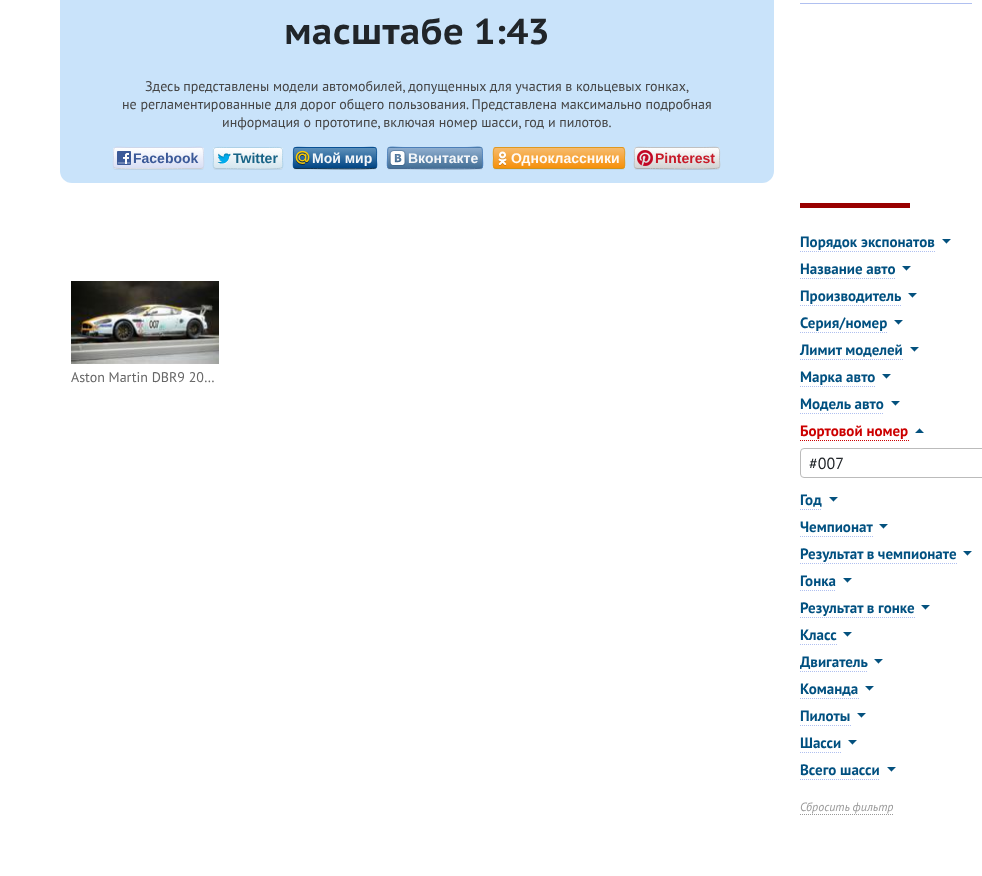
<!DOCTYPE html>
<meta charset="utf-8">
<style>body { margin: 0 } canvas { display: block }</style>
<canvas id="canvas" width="982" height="876"></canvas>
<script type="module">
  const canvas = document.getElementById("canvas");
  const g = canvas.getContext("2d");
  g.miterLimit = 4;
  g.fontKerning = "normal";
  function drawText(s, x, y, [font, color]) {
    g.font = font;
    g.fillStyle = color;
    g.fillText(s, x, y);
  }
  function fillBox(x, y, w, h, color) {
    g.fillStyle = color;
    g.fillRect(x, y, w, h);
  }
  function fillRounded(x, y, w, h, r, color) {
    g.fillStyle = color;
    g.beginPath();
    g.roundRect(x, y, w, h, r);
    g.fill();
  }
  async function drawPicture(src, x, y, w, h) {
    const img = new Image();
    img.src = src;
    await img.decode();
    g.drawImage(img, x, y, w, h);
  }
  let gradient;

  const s1 = ["bold 36px PT Sans Caption", "#212529"];
  const s2 = ["14px PT Sans", "#444444"];
  const s3 = ["bold 14px Liberation Sans", "#3B5998"];
  const s4 = ["bold 14px Liberation Sans", "#186487"];
  const s5 = ["bold 14px Liberation Sans", "#F4F7FA"];
  const s6 = ["bold 14px Liberation Sans", "#FFFAF5"];
  const s7 = ["bold 14px Liberation Sans", "#C71A28"];
  const s8 = ["14px PT Sans", "#666666"];
  const s9 = ["bold 15px PT Sans", "#005080"];
  const s10 = ["bold 15px PT Sans", "#CC0000"];
  const s11 = ["16px PT Sans", "#212529"];
  const s12 = ["italic 12px PT Sans", "#999999"];

  fillBox(0, 0, 982, 876, "#FFFFFF");
  fillBox(800, 3, 172, 1, "#B0C0F0");
  fillRounded(60, -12, 714, 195, 12, "#C9E3FA");
  drawText("масштабе 1:43", 284, 44, s1);
  drawText("Здесь представлены модели автомобилей, допущенных для участия в кольцевых гонках,", 145, 91, s2);
  drawText("не регламентированные для дорог общего пользования. Представлена максимально подробная", 122, 109, s2);
  drawText("информация о прототипе, включая номер шасси, год и пилотов.", 222, 127, s2);
  g.fillStyle = "rgba(0, 0, 0, 0.05)";
  g.filter = "blur(0.5px)";
  g.beginPath();
  g.roundRect(113, 148, 91, 22, 3);
  g.fill();
  g.filter = "none";
  g.save();
  g.beginPath();
  g.roundRect(113, 147, 91, 22, 3);
  g.clip();
  gradient = g.createLinearGradient(159, 128, 159, 148);
  gradient.addColorStop(0, "#FFFFFF");
  gradient.addColorStop(1, "#D8DEF4");
  g.fillStyle = gradient;
  g.fillRect(113, 147, 91, 1);
  gradient = g.createLinearGradient(159, 148, 159, 168);
  gradient.addColorStop(0, "#FFFFFF");
  gradient.addColorStop(1, "#D8DEF4");
  g.fillStyle = gradient;
  g.fillRect(113, 148, 91, 20);
  gradient = g.createLinearGradient(159, 168, 159, 188);
  gradient.addColorStop(0, "#FFFFFF");
  gradient.addColorStop(1, "#D8DEF4");
  g.fillStyle = gradient;
  g.fillRect(113, 168, 91, 1);
  g.restore();
  g.beginPath();
  g.moveTo(203, 168);
  g.lineTo(201, 168.5);
  g.lineTo(187, 168.5);
  g.bezierCurveTo(179.5, 168.5, 116.5, 169.5, 114.5, 168);
  g.lineTo(114, 168);
  g.strokeStyle = "rgba(189, 194, 203, 0.8)";
  g.stroke();
  g.beginPath();
  g.moveTo(114, 168);
  g.bezierCurveTo(112.5, 166, 113.5, 160, 113.5, 158);
  g.bezierCurveTo(113.5, 143.5, 113, 147.5, 130, 147.5);
  g.lineTo(187, 147.5);
  g.bezierCurveTo(204, 147.5, 203.5, 143.5, 203.5, 158);
  g.bezierCurveTo(203.5, 160, 204.5, 166, 203, 168);
  g.strokeStyle = "rgba(202, 212, 231, 0.8)";
  g.stroke();
  await drawPicture("pic1.png", 117, 151, 14, 14);
  drawText("Facebook", 133, 163, s3);
  g.fillStyle = "rgba(0, 0, 0, 0.05)";
  g.filter = "blur(0.5px)";
  g.beginPath();
  g.roundRect(213, 148, 70, 22, 3);
  g.fill();
  g.filter = "none";
  g.save();
  g.beginPath();
  g.roundRect(213, 147, 70, 22, 3);
  g.clip();
  gradient = g.createLinearGradient(248, 128, 248, 148);
  gradient.addColorStop(0, "#FFFFFF");
  gradient.addColorStop(1, "#D5E6EF");
  g.fillStyle = gradient;
  g.fillRect(213, 147, 70, 1);
  gradient = g.createLinearGradient(248, 148, 248, 168);
  gradient.addColorStop(0, "#FFFFFF");
  gradient.addColorStop(1, "#D5E6EF");
  g.fillStyle = gradient;
  g.fillRect(213, 148, 70, 20);
  gradient = g.createLinearGradient(248, 168, 248, 188);
  gradient.addColorStop(0, "#FFFFFF");
  gradient.addColorStop(1, "#D5E6EF");
  g.fillStyle = gradient;
  g.fillRect(213, 168, 70, 1);
  g.restore();
  g.beginPath();
  g.moveTo(282, 168);
  g.lineTo(281.5, 168);
  g.bezierCurveTo(279.5, 169.5, 233, 168.5, 226.5, 168.5);
  g.lineTo(216, 168.5);
  g.lineTo(214, 168);
  g.strokeStyle = "rgba(158, 186, 204, 0.8)";
  g.stroke();
  g.beginPath();
  g.moveTo(214, 168);
  g.bezierCurveTo(212.5, 166, 213.5, 162.5, 213.5, 160.5);
  g.bezierCurveTo(213.5, 145.5, 211, 147.5, 226.5, 147.5);
  g.lineTo(269.5, 147.5);
  g.bezierCurveTo(285, 147.5, 282.5, 145.5, 282.5, 160.5);
  g.bezierCurveTo(282.5, 162.5, 283.5, 166, 282, 168);
  g.strokeStyle = "rgba(164, 204, 229, 0.8)";
  g.stroke();
  await drawPicture("pic2.png", 217, 153, 14, 11);
  drawText("Twitter", 233, 163, s4);
  g.fillStyle = "rgba(0, 0, 0, 0.05)";
  g.filter = "blur(0.5px)";
  g.beginPath();
  g.roundRect(293, 148, 84, 22, 3);
  g.fill();
  g.filter = "none";
  g.save();
  g.beginPath();
  g.roundRect(293, 147, 84, 22, 3);
  g.clip();
  gradient = g.createLinearGradient(335, 128, 335, 148);
  gradient.addColorStop(0, "#5D90BA");
  gradient.addColorStop(1, "#004584");
  g.fillStyle = gradient;
  g.fillRect(293, 147, 84, 1);
  gradient = g.createLinearGradient(335, 148, 335, 168);
  gradient.addColorStop(0, "#5D90BA");
  gradient.addColorStop(1, "#004584");
  g.fillStyle = gradient;
  g.fillRect(293, 148, 84, 20);
  gradient = g.createLinearGradient(335, 168, 335, 188);
  gradient.addColorStop(0, "#5D90BA");
  gradient.addColorStop(1, "#004584");
  g.fillStyle = gradient;
  g.fillRect(293, 168, 84, 1);
  g.restore();
  g.beginPath();
  g.moveTo(376, 168);
  g.lineTo(375.5, 168);
  g.bezierCurveTo(373.5, 169.5, 316, 168.5, 309, 168.5);
  g.lineTo(296, 168.5);
  g.lineTo(294, 168);
  g.strokeStyle = "rgba(3, 27, 48, 0.8)";
  g.stroke();
  g.beginPath();
  g.moveTo(294, 168);
  g.bezierCurveTo(292.5, 166, 293.5, 162.5, 293.5, 160.5);
  g.bezierCurveTo(293.5, 144.5, 291, 147.5, 309, 147.5);
  g.lineTo(361, 147.5);
  g.bezierCurveTo(379, 147.5, 376.5, 144.5, 376.5, 160.5);
  g.bezierCurveTo(376.5, 162.5, 377.5, 166, 376, 168);
  g.strokeStyle = "rgba(11, 84, 153, 0.8)";
  g.stroke();
  await drawPicture("pic3.png", 295, 150, 15, 15);
  drawText("Мой мир", 312, 163, s5);
  g.fillStyle = "rgba(0, 0, 0, 0.05)";
  g.filter = "blur(0.5px)";
  g.beginPath();
  g.roundRect(387, 148, 96, 22, 3);
  g.fill();
  g.filter = "none";
  g.save();
  g.beginPath();
  g.roundRect(387, 147, 96, 22, 3);
  g.clip();
  gradient = g.createLinearGradient(435, 128, 435, 148);
  gradient.addColorStop(0, "#8FAECF");
  gradient.addColorStop(1, "#436F96");
  g.fillStyle = gradient;
  g.fillRect(387, 147, 96, 1);
  gradient = g.createLinearGradient(435, 148, 435, 168);
  gradient.addColorStop(0, "#8FAECF");
  gradient.addColorStop(1, "#436F96");
  g.fillStyle = gradient;
  g.fillRect(387, 148, 96, 20);
  gradient = g.createLinearGradient(435, 168, 435, 188);
  gradient.addColorStop(0, "#8FAECF");
  gradient.addColorStop(1, "#436F96");
  g.fillStyle = gradient;
  g.fillRect(387, 168, 96, 1);
  g.restore();
  g.beginPath();
  g.moveTo(482, 168);
  g.lineTo(481.5, 168);
  g.bezierCurveTo(479.5, 169.5, 413, 168.5, 405, 168.5);
  g.lineTo(390, 168.5);
  g.lineTo(388, 168);
  g.strokeStyle = "rgba(52, 88, 127, 0.8)";
  g.stroke();
  g.beginPath();
  g.moveTo(388, 168);
  g.bezierCurveTo(386.5, 166, 387.5, 160, 387.5, 158);
  g.bezierCurveTo(387.5, 143.5, 387, 147.5, 405, 147.5);
  g.lineTo(465, 147.5);
  g.bezierCurveTo(483, 147.5, 482.5, 143.5, 482.5, 158);
  g.bezierCurveTo(482.5, 160, 483.5, 166, 482, 168);
  g.strokeStyle = "rgba(78, 131, 193, 0.8)";
  g.stroke();
  await drawPicture("pic4.png", 389, 150, 17, 16);
  drawText("Вконтакте", 408, 163, s5);
  g.fillStyle = "rgba(0, 0, 0, 0.05)";
  g.filter = "blur(0.5px)";
  g.beginPath();
  g.roundRect(493, 148, 132, 22, 3);
  g.fill();
  g.filter = "none";
  g.save();
  g.beginPath();
  g.roundRect(493, 147, 132, 22, 3);
  g.clip();
  gradient = g.createLinearGradient(559, 128, 559, 148);
  gradient.addColorStop(0, "#F6BB6D");
  gradient.addColorStop(1, "#F6900B");
  g.fillStyle = gradient;
  g.fillRect(493, 147, 132, 1);
  gradient = g.createLinearGradient(559, 148, 559, 168);
  gradient.addColorStop(0, "#F6BB6D");
  gradient.addColorStop(1, "#F6900B");
  g.fillStyle = gradient;
  g.fillRect(493, 148, 132, 20);
  gradient = g.createLinearGradient(559, 168, 559, 188);
  gradient.addColorStop(0, "#F6BB6D");
  gradient.addColorStop(1, "#F6900B");
  g.fillStyle = gradient;
  g.fillRect(493, 168, 132, 1);
  g.restore();
  g.beginPath();
  g.moveTo(624, 168);
  g.lineTo(622, 168.5);
  g.lineTo(496, 168.5);
  g.lineTo(494, 168);
  g.strokeStyle = "rgba(197, 137, 7, 0.8)";
  g.stroke();
  g.beginPath();
  g.moveTo(494, 168);
  g.bezierCurveTo(492.5, 166, 493.5, 160, 493.5, 158);
  g.bezierCurveTo(493.5, 156, 492, 147.5, 496, 147.5);
  g.lineTo(622, 147.5);
  g.bezierCurveTo(626, 147.5, 624.5, 156, 624.5, 158);
  g.bezierCurveTo(624.5, 160, 625.5, 166, 624, 168);
  g.strokeStyle = "rgba(217, 154, 38, 0.8)";
  g.stroke();
  await drawPicture("pic5.png", 498, 151, 9, 15);
  drawText("Одноклассники", 511, 163, s6);
  g.fillStyle = "rgba(0, 0, 0, 0.05)";
  g.filter = "blur(0.5px)";
  g.beginPath();
  g.roundRect(634, 148, 86, 22, 3);
  g.fill();
  g.filter = "none";
  g.save();
  g.beginPath();
  g.roundRect(634, 147, 86, 22, 3);
  g.clip();
  gradient = g.createLinearGradient(677, 128, 677, 148);
  gradient.addColorStop(0, "#FEFEFE");
  gradient.addColorStop(1, "#D3D3D3");
  g.fillStyle = gradient;
  g.fillRect(634, 147, 86, 1);
  gradient = g.createLinearGradient(677, 148, 677, 168);
  gradient.addColorStop(0, "#FEFEFE");
  gradient.addColorStop(1, "#D3D3D3");
  g.fillStyle = gradient;
  g.fillRect(634, 148, 86, 20);
  gradient = g.createLinearGradient(677, 168, 677, 188);
  gradient.addColorStop(0, "#FEFEFE");
  gradient.addColorStop(1, "#D3D3D3");
  g.fillStyle = gradient;
  g.fillRect(634, 168, 86, 1);
  g.restore();
  g.beginPath();
  g.moveTo(719, 168);
  g.lineTo(718.5, 168);
  g.bezierCurveTo(716.5, 169.5, 657.5, 168.5, 650.5, 168.5);
  g.lineTo(637, 168.5);
  g.lineTo(635, 168);
  g.strokeStyle = "rgba(153, 153, 153, 0.8)";
  g.stroke();
  g.beginPath();
  g.moveTo(635, 168);
  g.bezierCurveTo(633.5, 166, 634.5, 162.5, 634.5, 160.5);
  g.bezierCurveTo(634.5, 144.5, 632, 147.5, 650.5, 147.5);
  g.lineTo(703.5, 147.5);
  g.bezierCurveTo(722, 147.5, 719.5, 144.5, 719.5, 160.5);
  g.bezierCurveTo(719.5, 162.5, 720.5, 166, 719, 168);
  g.strokeStyle = "rgba(186, 186, 186, 0.8)";
  g.stroke();
  await drawPicture("pic6.png", 637, 150, 16, 16);
  drawText("Pinterest", 655, 163, s7);
  await drawPicture("pic7.png", 71, 281, 148, 83);
  drawText("Aston Martin DBR9 20…", 71, 382, s8);
  fillBox(800, 203, 110, 5, "#990000");
  drawText("Порядок экспонатов", 800, 247, s9);
  g.beginPath();
  g.moveTo(800, 251.5);
  g.lineTo(935, 251.5);
  g.strokeStyle = "#B0C0F0";
  g.setLineDash([1, 1]);
  g.stroke();
  await drawPicture("pic8.png", 942, 239, 9, 5);
  drawText("Название авто", 800, 274, s9);
  g.beginPath();
  g.moveTo(800, 278.5);
  g.lineTo(896, 278.5);
  g.stroke();
  await drawPicture("pic8.png", 902, 266, 9, 5);
  drawText("Производитель", 800, 301, s9);
  g.beginPath();
  g.moveTo(800, 305.5);
  g.lineTo(901, 305.5);
  g.stroke();
  await drawPicture("pic8.png", 908, 293, 9, 5);
  drawText("Серия/номер", 800, 328, s9);
  g.beginPath();
  g.moveTo(800, 332.5);
  g.lineTo(888, 332.5);
  g.stroke();
  await drawPicture("pic8.png", 894, 320, 9, 5);
  drawText("Лимит моделей", 800, 355, s9);
  g.beginPath();
  g.moveTo(800, 359.5);
  g.lineTo(903, 359.5);
  g.stroke();
  await drawPicture("pic8.png", 910, 347, 9, 5);
  drawText("Марка авто", 800, 382, s9);
  g.beginPath();
  g.moveTo(800, 386.5);
  g.lineTo(876, 386.5);
  g.stroke();
  await drawPicture("pic8.png", 882, 374, 9, 5);
  drawText("Модель авто", 800, 409, s9);
  g.beginPath();
  g.moveTo(800, 413.5);
  g.lineTo(884, 413.5);
  g.stroke();
  await drawPicture("pic8.png", 891, 401, 9, 5);
  drawText("Бортовой номер", 800, 436, s10);
  g.beginPath();
  g.moveTo(800, 440.5);
  g.lineTo(909, 440.5);
  g.strokeStyle = "#CC0000";
  g.stroke();
  await drawPicture("pic9.png", 915, 428, 9, 5);
  g.beginPath();
  g.roundRect(800.5, 448.5, 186, 29, 3.5);
  g.strokeStyle = "#BBBBBB";
  g.setLineDash([]);
  g.stroke();
  drawText("#007", 809, 469, s11);
  drawText("Год", 800, 505, s9);
  g.beginPath();
  g.moveTo(800, 509.5);
  g.lineTo(822, 509.5);
  g.strokeStyle = "#B0C0F0";
  g.setLineDash([1, 1]);
  g.stroke();
  await drawPicture("pic8.png", 829, 497, 9, 5);
  drawText("Чемпионат", 800, 532, s9);
  g.beginPath();
  g.moveTo(800, 536.5);
  g.lineTo(873, 536.5);
  g.stroke();
  await drawPicture("pic8.png", 879, 524, 9, 5);
  drawText("Результат в чемпионате", 800, 559, s9);
  g.beginPath();
  g.moveTo(800, 563.5);
  g.lineTo(957, 563.5);
  g.stroke();
  await drawPicture("pic8.png", 963, 551, 9, 5);
  drawText("Гонка", 800, 586, s9);
  g.beginPath();
  g.moveTo(800, 590.5);
  g.lineTo(836, 590.5);
  g.stroke();
  await drawPicture("pic8.png", 843, 578, 9, 5);
  drawText("Результат в гонке", 800, 613, s9);
  g.beginPath();
  g.moveTo(800, 617.5);
  g.lineTo(915, 617.5);
  g.stroke();
  await drawPicture("pic8.png", 921, 605, 9, 5);
  drawText("Класс", 800, 640, s9);
  g.beginPath();
  g.moveTo(800, 644.5);
  g.lineTo(837, 644.5);
  g.stroke();
  await drawPicture("pic8.png", 843, 632, 9, 5);
  drawText("Двигатель", 800, 667, s9);
  g.beginPath();
  g.moveTo(800, 671.5);
  g.lineTo(868, 671.5);
  g.stroke();
  await drawPicture("pic8.png", 874, 659, 9, 5);
  drawText("Команда", 800, 694, s9);
  g.beginPath();
  g.moveTo(800, 698.5);
  g.lineTo(859, 698.5);
  g.stroke();
  await drawPicture("pic8.png", 865, 686, 9, 5);
  drawText("Пилоты", 800, 721, s9);
  g.beginPath();
  g.moveTo(800, 725.5);
  g.lineTo(851, 725.5);
  g.stroke();
  await drawPicture("pic8.png", 857, 713, 9, 5);
  drawText("Шасси", 800, 748, s9);
  g.beginPath();
  g.moveTo(800, 752.5);
  g.lineTo(842, 752.5);
  g.stroke();
  await drawPicture("pic8.png", 848, 740, 9, 5);
  drawText("Всего шасси", 800, 775, s9);
  g.beginPath();
  g.moveTo(800, 779.5);
  g.lineTo(880, 779.5);
  g.stroke();
  await drawPicture("pic8.png", 887, 767, 9, 5);
  g.beginPath();
  g.moveTo(800, 814.5);
  g.lineTo(894, 814.5);
  g.strokeStyle = "#999999";
  g.stroke();
  drawText("Сбросить фильтр", 800, 811, s12);
</script>
